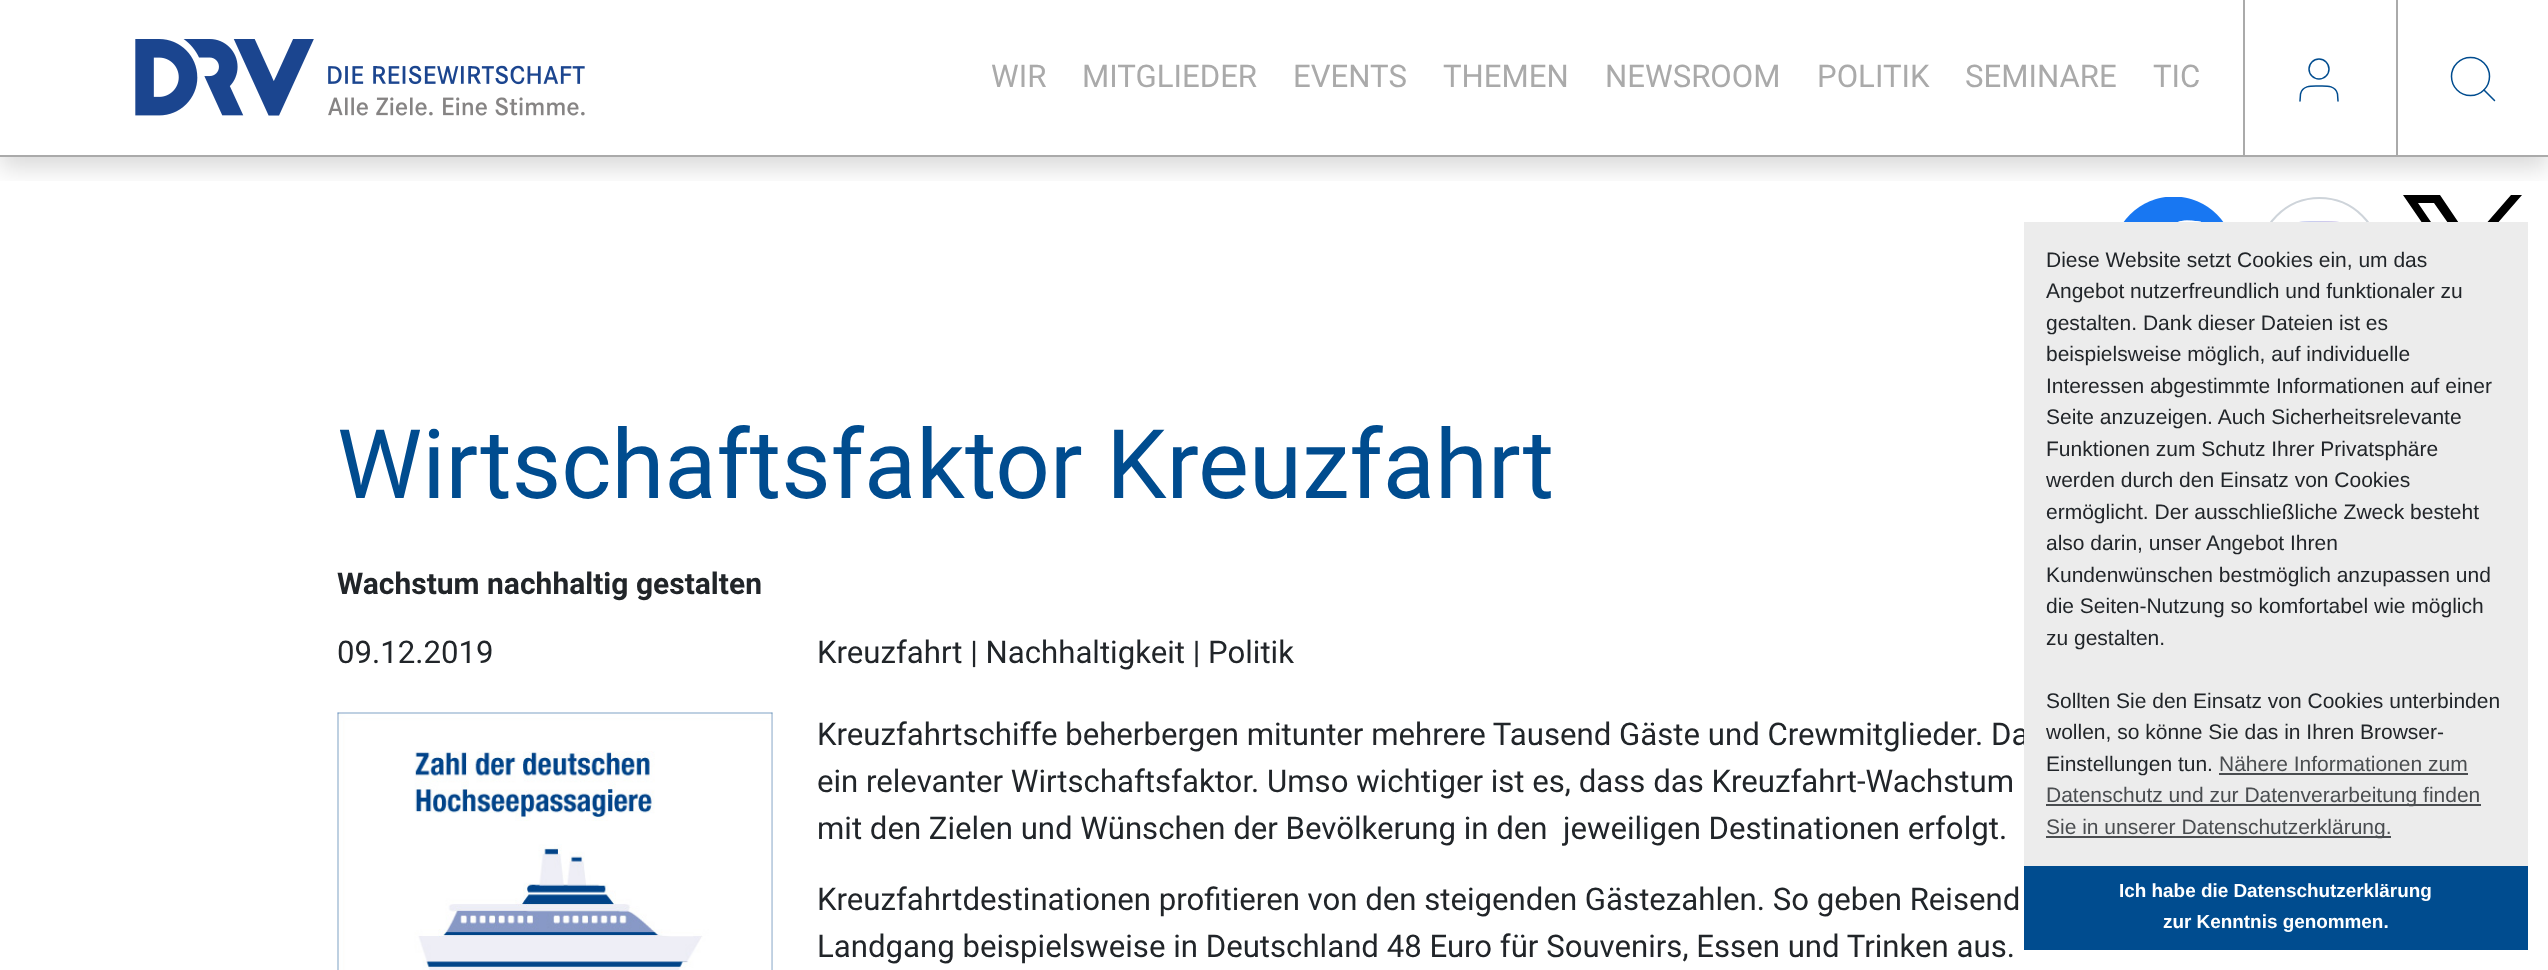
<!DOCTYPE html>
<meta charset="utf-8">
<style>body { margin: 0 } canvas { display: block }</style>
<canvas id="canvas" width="2548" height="970"></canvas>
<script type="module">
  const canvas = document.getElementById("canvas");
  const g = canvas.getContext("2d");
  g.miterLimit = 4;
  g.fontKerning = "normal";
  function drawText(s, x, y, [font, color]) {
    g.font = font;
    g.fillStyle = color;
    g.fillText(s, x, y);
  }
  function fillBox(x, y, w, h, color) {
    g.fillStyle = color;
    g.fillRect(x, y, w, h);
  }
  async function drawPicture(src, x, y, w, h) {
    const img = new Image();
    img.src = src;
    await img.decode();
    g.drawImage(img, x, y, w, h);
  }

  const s1 = ["31.2px Roboto", "#AAAAAA"];
  const s2 = ["96px Roboto", "#004C8F"];
  const s3 = ["bold 30px Roboto", "#212529"];
  const s4 = ["31.2px Roboto", "#212529"];
  const s5 = ["21px Liberation Sans", "#212529"];
  const s6 = ["21px Liberation Sans", "#4A4D50"];
  const s7 = ["bold 18.9px Liberation Sans", "#FFFFFF"];

  fillBox(0, 0, 2548, 970, "#FFFFFF");
  await drawPicture("pic2.png", 2123, 197, 101, 25);
  g.beginPath();
  g.arc(2319.5, 258.5, 60.5, 0, Math.PI * 2);
  g.strokeStyle = "#CED4DA";
  g.lineWidth = 2;
  g.stroke();
  g.fillStyle = "#000000";
  g.beginPath();
  g.moveTo(2476, 248);
  g.lineTo(2522, 195);
  g.lineTo(2511, 195);
  g.lineTo(2471, 241);
  g.lineTo(2440, 195);
  g.lineTo(2403, 195);
  g.lineTo(2451, 265);
  g.lineTo(2403, 321);
  g.lineTo(2414, 321);
  g.lineTo(2456, 272);
  g.lineTo(2489, 321);
  g.lineTo(2526, 321);
  g.closePath();
  g.moveTo(2461, 266);
  g.lineTo(2418, 203);
  g.lineTo(2434, 203);
  g.lineTo(2511, 313);
  g.lineTo(2494, 313);
  g.closePath();
  g.fill();
  g.save();
  g.beginPath();
  g.rect(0, 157, 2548, 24);
  g.clip();
  g.fillStyle = "rgba(0, 0, 0, 0.15)";
  g.filter = "blur(12px)";
  g.beginPath();
  g.rect(0, 12, 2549, 156);
  g.fill();
  g.filter = "none";
  g.restore();
  fillBox(0, 155, 2548, 2, "#AAAAAA");
  await drawPicture("pic1.png", 135, 39, 450, 77);
  drawText("WIR", 991, 87, s1);
  drawText("MITGLIEDER", 1082, 87, s1);
  drawText("EVENTS", 1293, 87, s1);
  drawText("THEMEN", 1443, 87, s1);
  drawText("NEWSROOM", 1605, 87, s1);
  drawText("POLITIK", 1817, 87, s1);
  drawText("SEMINARE", 1965, 87, s1);
  drawText("TIC", 2153, 87, s1);
  fillBox(2243, 0, 2, 155, "#AAAAAA");
  g.beginPath();
  g.moveTo(2338, 101);
  g.lineTo(2337.5, 94);
  g.bezierCurveTo(2335.5, 85, 2326, 86, 2319, 86);
  g.bezierCurveTo(2312, 86, 2302.5, 85, 2300.5, 94);
  g.lineTo(2300, 101);
  g.strokeStyle = "#004C8F";
  g.lineWidth = 1.5;
  g.lineCap = "round";
  g.lineJoin = "round";
  g.stroke();
  g.beginPath();
  g.arc(2319, 69, 10, 0, Math.PI * 2);
  g.stroke();
  fillBox(2396, 0, 2, 155, "#AAAAAA");
  g.beginPath();
  g.arc(2470.5, 76.5, 19, 0, Math.PI * 2);
  g.stroke();
  g.beginPath();
  g.moveTo(2494.5, 100.5);
  g.lineTo(2484, 90);
  g.stroke();
  await drawPicture("pic3.png", 2299, 221, 40, 1);
  fillBox(2403, 320, 123, 1, "#FFFFFF");
  drawText("Wirtschaftsfaktor Kreuzfahrt", 337, 498, s2);
  drawText("Wachstum nachhaltig gestalten", 337, 594, s3);
  drawText("09.12.2019", 337, 663, s4);
  drawText("Kreuzfahrt | Nachhaltigkeit | Politik", 817, 663, s4);
  await drawPicture("pic4.png", 337, 712, 436, 258);
  drawText("Kreuzfahrtschiffe beherbergen mitunter mehrere Tausend Gäste und Crewmitglieder. Da", 817, 745, s4);
  drawText("ein relevanter Wirtschaftsfaktor. Umso wichtiger ist es, dass das Kreuzfahrt-Wachstum", 817, 792, s4);
  drawText("mit den Zielen und Wünschen der Bevölkerung in den  jeweiligen Destinationen erfolgt.", 817, 839, s4);
  drawText("Kreuzfahrtdestinationen profitieren von den steigenden Gästezahlen. So geben Reisend", 817, 910, s4);
  drawText("Landgang beispielsweise in Deutschland 48 Euro für Souvenirs, Essen und Trinken aus.", 817, 957, s4);
  fillBox(2024, 222, 504, 644, "#ECECEC");
  drawText("Diese Website setzt Cookies ein, um das", 2046, 267, s5);
  drawText("Angebot nutzerfreundlich und funktionaler zu", 2046, 298, s5);
  drawText("gestalten. Dank dieser Dateien ist es", 2046, 330, s5);
  drawText("beispielsweise möglich, auf individuelle", 2046, 361, s5);
  drawText("Interessen abgestimmte Informationen auf einer", 2046, 393, s5);
  drawText("Seite anzuzeigen. Auch Sicherheitsrelevante", 2046, 424, s5);
  drawText("Funktionen zum Schutz Ihrer Privatsphäre", 2046, 456, s5);
  drawText("werden durch den Einsatz von Cookies", 2046, 487, s5);
  drawText("ermöglicht. Der ausschließliche Zweck besteht", 2046, 519, s5);
  drawText("also darin, unser Angebot Ihren", 2046, 550, s5);
  drawText("Kundenwünschen bestmöglich anzupassen und", 2046, 582, s5);
  drawText("die Seiten-Nutzung so komfortabel wie möglich", 2046, 613, s5);
  drawText("zu gestalten.", 2046, 645, s5);
  drawText("Sollten Sie den Einsatz von Cookies unterbinden", 2046, 708, s5);
  drawText("wollen, so könne Sie das in Ihren Browser-", 2046, 739, s5);
  drawText("Einstellungen tun.", 2046, 771, s5);
  drawText("Nähere Informationen zum", 2219, 771, s6);
  fillBox(2219, 773, 249, 2, "#4A4D50");
  fillBox(2046, 804, 435, 2, "#4A4D50");
  drawText("Datenschutz und zur Datenverarbeitung finden", 2046, 802, s6);
  fillBox(2046, 836, 345, 2, "#4A4D50");
  drawText("Sie in unserer Datenschutzerklärung.", 2046, 834, s6);
  fillBox(2024, 866, 504, 84, "#004C8F");
  drawText("Ich habe die Datenschutzerklärung", 2119, 897, s7);
  drawText("zur Kenntnis genommen.", 2163, 928, s7);
</script>
